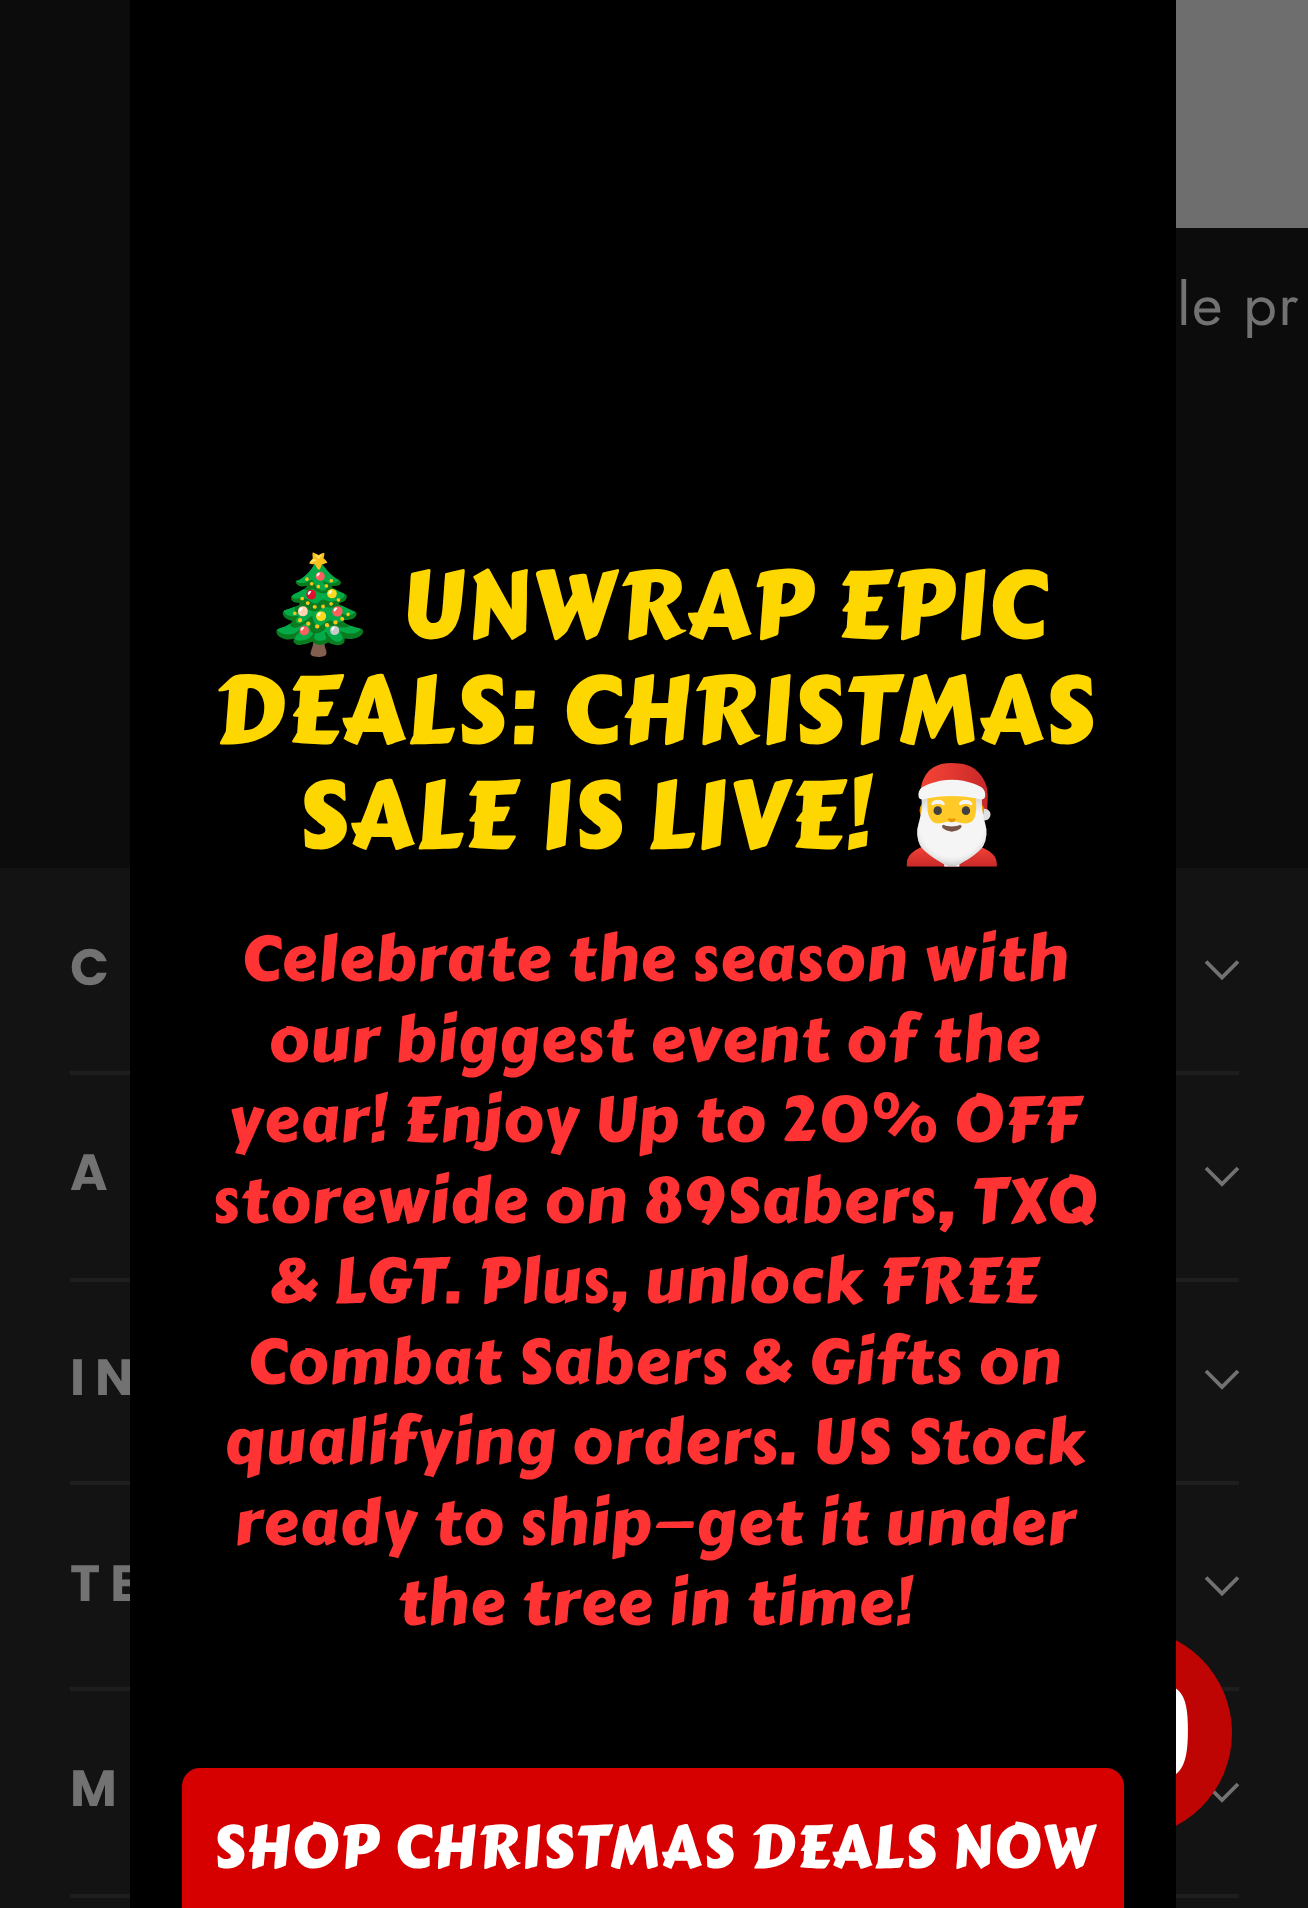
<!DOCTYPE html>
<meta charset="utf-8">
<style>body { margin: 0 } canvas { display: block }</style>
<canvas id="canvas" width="1308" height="1908"></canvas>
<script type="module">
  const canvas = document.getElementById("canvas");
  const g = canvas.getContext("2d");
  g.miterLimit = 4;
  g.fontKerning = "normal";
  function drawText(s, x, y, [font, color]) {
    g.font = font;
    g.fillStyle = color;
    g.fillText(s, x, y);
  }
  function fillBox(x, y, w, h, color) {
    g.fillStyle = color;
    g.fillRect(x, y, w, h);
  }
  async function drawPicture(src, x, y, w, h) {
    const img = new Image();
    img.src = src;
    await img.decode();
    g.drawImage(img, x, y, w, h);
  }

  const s1 = ["59px Jost", "#727272"];
  const s2 = ["bold 51px Poppins", "#727272"];
  const s3 = ["94.5px Noto Color Emoji", "#FFD700"];
  const s4 = ["94.5px Carter One", "#FFD700"];
  const s5 = ["63px Carter One", "#FF3333"];
  const s6 = ["59.5px Carter One", "#FFFFFF"];

  fillBox(0, 0, 1308, 1908, "#0C0C0C");
  fillBox(1176, 0, 132, 228, "#6E6E6E");
  g.letterSpacing = "1.5px";
  drawText("le pr", 1177, 325, s1);
  fillBox(0, 868, 1308, 1040, "#131313");
  g.letterSpacing = "10px";
  drawText("C", 70, 985, s2);
  g.beginPath();
  g.moveTo(1206, 961.5);
  g.lineTo(1222, 977.5);
  g.lineTo(1238, 961.5);
  g.strokeStyle = "#727272";
  g.lineWidth = 3.8;
  g.stroke();
  fillBox(70, 1071, 1169, 4, "#1E1E1E");
  drawText("A", 70, 1190, s2);
  g.beginPath();
  g.moveTo(1206, 1168);
  g.lineTo(1222, 1184);
  g.lineTo(1238, 1168);
  g.stroke();
  fillBox(70, 1278, 1169, 4, "#1E1E1E");
  drawText("IN", 70, 1395, s2);
  g.beginPath();
  g.moveTo(1206, 1371);
  g.lineTo(1222, 1387);
  g.lineTo(1238, 1371);
  g.stroke();
  fillBox(70, 1481, 1169, 4, "#1E1E1E");
  drawText("TE", 70, 1601, s2);
  g.beginPath();
  g.moveTo(1206, 1577.5);
  g.lineTo(1222, 1593.5);
  g.lineTo(1238, 1577.5);
  g.stroke();
  fillBox(70, 1687, 1169, 4, "#1E1E1E");
  drawText("M", 70, 1806, s2);
  g.beginPath();
  g.moveTo(1206, 1784);
  g.lineTo(1222, 1800);
  g.lineTo(1238, 1784);
  g.stroke();
  fillBox(70, 1894, 1169, 4, "#1E1E1E");
  g.fillStyle = "#BF0504";
  g.beginPath();
  g.arc(1127, 1733, 105, 0, Math.PI * 2);
  g.fill();
  fillBox(130, 0, 1046, 1908, "#000000");
  g.letterSpacing = "1.5px";
  drawText("🎄", 260, 637, s3);
  drawText("UNWRAP EPIC", 401, 637, s4);
  drawText("DEALS: CHRISTMAS", 213, 742, s4);
  drawText("SALE IS LIVE!", 297, 847, s4);
  drawText("🎅", 893, 847, s3);
  drawText("Celebrate the season with", 241, 980, s5);
  drawText("our biggest event of the", 268, 1061, s5);
  drawText("year! Enjoy Up to 20% OFF", 228, 1141, s5);
  drawText("storewide on 89Sabers, TXQ", 212, 1222, s5);
  drawText("& LGT. Plus, unlock FREE", 269, 1302, s5);
  drawText("Combat Sabers & Gifts on", 247, 1383, s5);
  drawText("qualifying orders. US Stock", 224, 1463, s5);
  drawText("ready to ship—get it under", 234, 1544, s5);
  drawText("the tree in time!", 397, 1624, s5);
  g.fillStyle = "#D60000";
  g.beginPath();
  g.roundRect(185.5, 1771.5, 935, 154, 14.5);
  g.fill();
  g.strokeStyle = "#D60000";
  g.lineWidth = 7;
  g.stroke();
  drawText("SHOP CHRISTMAS DEALS NOW", 213, 1867, s6);
  await drawPicture("pic1.png", 1176, 1688, 12, 86);
</script>
